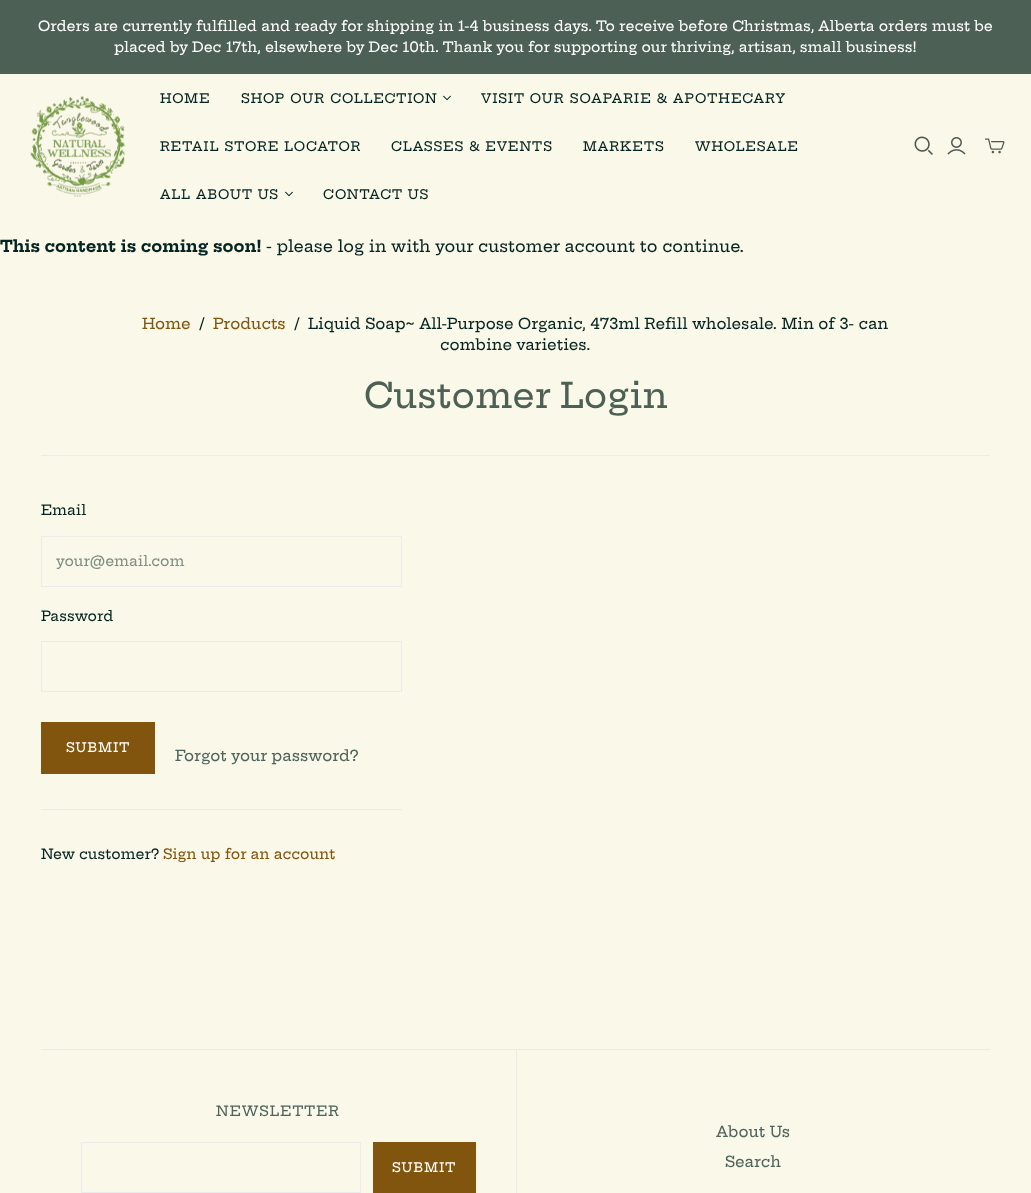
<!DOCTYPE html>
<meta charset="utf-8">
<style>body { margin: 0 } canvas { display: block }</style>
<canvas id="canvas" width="1031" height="1193"></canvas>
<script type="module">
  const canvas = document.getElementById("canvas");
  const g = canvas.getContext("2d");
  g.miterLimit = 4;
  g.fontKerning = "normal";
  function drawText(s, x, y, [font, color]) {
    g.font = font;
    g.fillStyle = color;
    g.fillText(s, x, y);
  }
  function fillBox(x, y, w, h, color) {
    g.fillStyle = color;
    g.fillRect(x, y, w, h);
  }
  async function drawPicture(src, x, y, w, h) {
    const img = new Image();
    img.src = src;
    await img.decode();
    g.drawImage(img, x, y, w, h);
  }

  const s1 = ["500 14px Hepta Slab", "#FFFFFF"];
  const s2 = ["500 13px Hepta Slab", "#052422"];
  const s3 = ["bold 16px Hepta Slab", "#052422"];
  const s4 = ["500 16px Hepta Slab", "#052422"];
  const s5 = ["500 15px Hepta Slab", "#81550D"];
  const s6 = ["500 15px Hepta Slab", "#052422"];
  const s7 = ["500 35px Hepta Slab", "#4D6055"];
  const s8 = ["500 14px Hepta Slab", "#052422"];
  const s9 = ["500 14px Hepta Slab", "#808E85"];
  const s10 = ["500 13px Hepta Slab", "#FFFFFF"];
  const s11 = ["500 15px Hepta Slab", "#4F645D"];
  const s12 = ["500 14px Hepta Slab", "#81550D"];
  const s13 = ["500 14px Hepta Slab", "#4F645D"];

  fillBox(0, 0, 1031, 1193, "#FAF8E8");
  fillBox(0, 0, 1031, 74, "#4D6055");
  drawText("Orders are currently fulfilled and ready for shipping in 1-4 business days. To receive before Christmas, Alberta orders must be", 38, 31, s1);
  drawText("placed by Dec 17th, elsewhere by Dec 10th. Thank you for supporting our thriving, artisan, small business!", 114, 52, s1);
  await drawPicture("pic1.png", 30, 96, 95, 101);
  g.letterSpacing = "1.05px";
  drawText("HOME", 160, 103, s2);
  drawText("SHOP OUR COLLECTION", 241, 103, s2);
  await drawPicture("pic2.png", 443, 95, 8, 6);
  drawText("VISIT OUR SOAPARIE & APOTHECARY", 481, 103, s2);
  drawText("RETAIL STORE LOCATOR", 160, 151, s2);
  drawText("CLASSES & EVENTS", 391, 151, s2);
  drawText("MARKETS", 583, 151, s2);
  drawText("WHOLESALE", 695, 151, s2);
  drawText("ALL ABOUT US", 160, 199, s2);
  await drawPicture("pic2.png", 285, 191, 8, 6);
  drawText("CONTACT US", 323, 199, s2);
  await drawPicture("pic3.png", 914, 136, 19, 19);
  await drawPicture("pic4.png", 947, 137, 19, 18);
  await drawPicture("pic5.png", 985, 138, 20, 16);
  g.letterSpacing = "0px";
  drawText("This content is coming soon!", 0, 252, s3);
  drawText("- please log in with your customer account to continue.", 266, 252, s4);
  drawText("Home", 142, 329, s5);
  drawText("/", 199, 329, s6);
  drawText("Products", 213, 329, s5);
  drawText("/", 294, 329, s6);
  drawText("Liquid Soap~ All-Purpose Organic, 473ml Refill wholesale. Min of 3- can", 308, 329, s6);
  drawText("combine varieties.", 440, 350, s6);
  fillBox(41, 455, 949, 1, "#EBEBEB");
  drawText("Customer Login", 364, 408, s7);
  drawText("Email", 41, 515, s8);
  g.strokeStyle = "#EBEBEB";
  g.strokeRect(41.5, 536.5, 360, 50);
  drawText("your@email.com", 56, 566, s9);
  drawText("Password", 41, 621, s8);
  g.strokeRect(41.5, 641.5, 360, 50);
  fillBox(41, 722, 114, 52, "#81550D");
  g.letterSpacing = "1.05px";
  drawText("SUBMIT", 66, 752, s10);
  g.letterSpacing = "0px";
  drawText("Forgot your password?", 175, 761, s11);
  fillBox(41, 809, 361, 1, "#EBEBEB");
  drawText("New customer?", 41, 859, s8);
  drawText("Sign up for an account", 163, 859, s12);
  fillBox(41, 1049, 949, 1, "#EBEBEB");
  g.letterSpacing = "1.1px";
  drawText("NEWSLETTER", 216, 1116, s13);
  g.strokeRect(81.5, 1142.5, 279, 50);
  fillBox(373, 1142, 103, 51, "#81550D");
  g.letterSpacing = "1.05px";
  drawText("SUBMIT", 392, 1172, s10);
  fillBox(516, 1050, 1, 143, "#EBEBEB");
  g.letterSpacing = "0px";
  drawText("About Us", 716, 1137, s11);
  drawText("Search", 725, 1167, s11);
</script>
